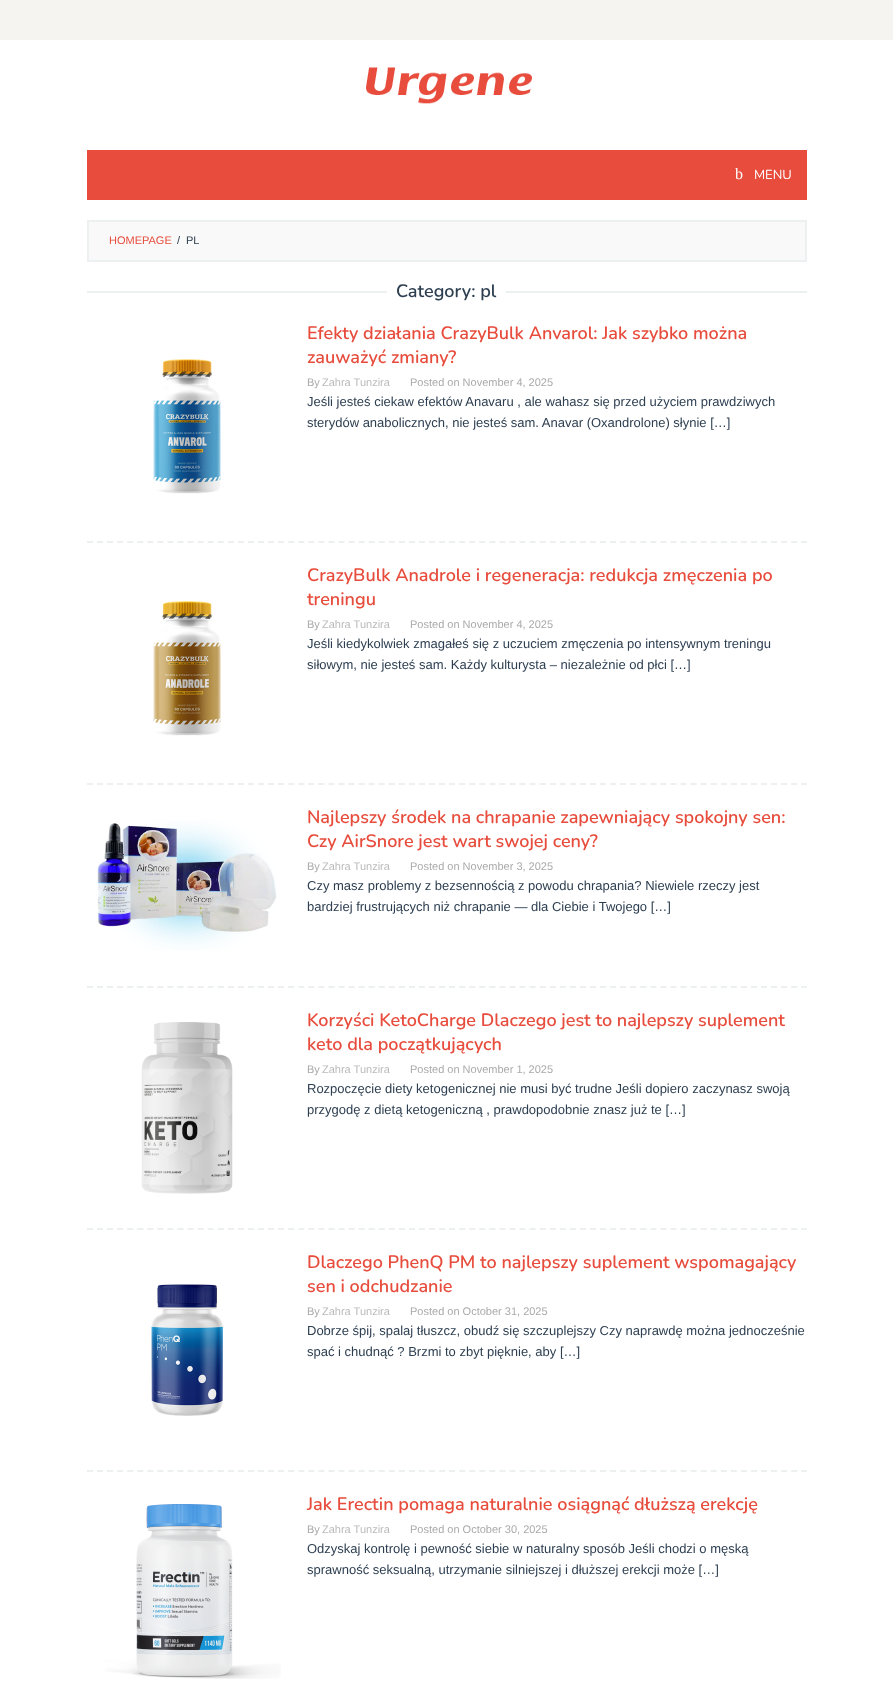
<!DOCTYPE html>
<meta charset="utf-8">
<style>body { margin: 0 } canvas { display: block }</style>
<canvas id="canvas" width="893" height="1702"></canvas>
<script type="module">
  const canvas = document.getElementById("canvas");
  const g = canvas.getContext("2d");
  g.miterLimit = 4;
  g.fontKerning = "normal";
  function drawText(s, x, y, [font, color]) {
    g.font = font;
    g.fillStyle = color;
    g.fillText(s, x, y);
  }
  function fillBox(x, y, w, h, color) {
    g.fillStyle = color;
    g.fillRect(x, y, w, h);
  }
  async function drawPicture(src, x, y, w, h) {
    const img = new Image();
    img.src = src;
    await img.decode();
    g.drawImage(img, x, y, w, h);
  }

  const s1 = ["16px Liberation Serif", "#FFFFFF"];
  const s2 = ["13px Nunito", "#FFFFFF"];
  const s3 = ["11px Liberation Sans", "#E74C3C"];
  const s4 = ["11px Liberation Sans", "#2C3E50"];
  const s5 = ["600 18px Nunito", "#2C3E50"];
  const s6 = ["600 18px Nunito", "#E74C3C"];
  const s7 = ["11px Liberation Sans", "#AAAAAA"];
  const s8 = ["11px Liberation Sans", "#BBBBBB"];
  const s9 = ["13px Liberation Sans", "#2C3E50"];

  fillBox(0, 0, 893, 1702, "#FFFFFF");
  fillBox(0, 0, 893, 40, "#F6F4F1");
  await drawPicture("pic1.png", 366, 67, 166, 37);
  fillBox(87, 150, 720, 50, "#E74C3C");
  drawText("b", 735, 179, s1);
  drawText("MENU", 754, 179, s2);
  g.fillStyle = "#F9F9F9";
  g.beginPath();
  g.rect(88, 221, 718, 40);
  g.fill();
  g.strokeStyle = "#ECF0F1";
  g.lineWidth = 2;
  g.stroke();
  drawText("HOMEPAGE", 109, 244, s3);
  drawText("/", 177, 244, s4);
  drawText("PL", 186, 244, s4);
  fillBox(87, 291, 300, 2, "#ECF0F1");
  drawText("Category: pl", 396, 297, s5);
  fillBox(506, 291, 301, 2, "#ECF0F1");
  g.beginPath();
  g.moveTo(87, 542);
  g.lineTo(807, 542);
  g.setLineDash([6, 4.06]);
  g.stroke();
  await drawPicture("pic2.png", 153, 359, 68, 135);
  drawText("Efekty działania CrazyBulk Anvarol: Jak szybko można", 307, 339, s6);
  drawText("zauważyć zmiany?", 307, 363, s6);
  drawText("By", 307, 386, s7);
  drawText("Zahra Tunzira", 322, 386, s8);
  drawText("Posted on November 4, 2025", 410, 386, s7);
  drawText("Jeśli jesteś ciekaw efektów Anavaru , ale wahasz się przed użyciem prawdziwych", 307, 406, s9);
  drawText("sterydów anabolicznych, nie jesteś sam. Anavar (Oxandrolone) słynie […]", 307, 427, s9);
  g.beginPath();
  g.moveTo(87, 784);
  g.lineTo(807, 784);
  g.stroke();
  await drawPicture("pic3.png", 153, 601, 68, 135);
  drawText("CrazyBulk Anadrole i regeneracja: redukcja zmęczenia po", 307, 581, s6);
  drawText("treningu", 307, 605, s6);
  drawText("By", 307, 628, s7);
  drawText("Zahra Tunzira", 322, 628, s8);
  drawText("Posted on November 4, 2025", 410, 628, s7);
  drawText("Jeśli kiedykolwiek zmagałeś się z uczuciem zmęczenia po intensywnym treningu", 307, 648, s9);
  drawText("siłowym, nie jesteś sam. Każdy kulturysta – niezależnie od płci […]", 307, 669, s9);
  g.beginPath();
  g.moveTo(87, 987);
  g.lineTo(807, 987);
  g.stroke();
  await drawPicture("pic4.png", 97, 820, 180, 131);
  drawText("Najlepszy środek na chrapanie zapewniający spokojny sen:", 307, 823, s6);
  drawText("Czy AirSnore jest wart swojej ceny?", 307, 847, s6);
  drawText("By", 307, 870, s7);
  drawText("Zahra Tunzira", 322, 870, s8);
  drawText("Posted on November 3, 2025", 410, 870, s7);
  drawText("Czy masz problemy z bezsennością z powodu chrapania? Niewiele rzeczy jest", 307, 890, s9);
  drawText("bardziej frustrujących niż chrapanie — dla Ciebie i Twojego […]", 307, 911, s9);
  g.beginPath();
  g.moveTo(87, 1229);
  g.lineTo(807, 1229);
  g.stroke();
  await drawPicture("pic5.png", 141, 1022, 92, 172);
  drawText("Korzyści KetoCharge Dlaczego jest to najlepszy suplement", 307, 1026, s6);
  drawText("keto dla początkujących", 307, 1050, s6);
  drawText("By", 307, 1073, s7);
  drawText("Zahra Tunzira", 322, 1073, s8);
  drawText("Posted on November 1, 2025", 410, 1073, s7);
  drawText("Rozpoczęcie diety ketogenicznej nie musi być trudne Jeśli dopiero zaczynasz swoją", 307, 1093, s9);
  drawText("przygodę z dietą ketogeniczną , prawdopodobnie znasz już te […]", 307, 1114, s9);
  g.beginPath();
  g.moveTo(87, 1471);
  g.lineTo(807, 1471);
  g.stroke();
  await drawPicture("pic6.png", 151, 1284, 72, 132);
  drawText("Dlaczego PhenQ PM to najlepszy suplement wspomagający", 307, 1268, s6);
  drawText("sen i odchudzanie", 307, 1292, s6);
  drawText("By", 307, 1315, s7);
  drawText("Zahra Tunzira", 322, 1315, s8);
  drawText("Posted on October 31, 2025", 410, 1315, s7);
  drawText("Dobrze śpij, spalaj tłuszcz, obudź się szczuplejszy Czy naprawdę można jednocześnie", 307, 1335, s9);
  drawText("spać i chudnąć ? Brzmi to zbyt pięknie, aby […]", 307, 1356, s9);
  await drawPicture("pic7.png", 105, 1504, 176, 175);
  drawText("Jak Erectin pomaga naturalnie osiągnąć dłuższą erekcję", 307, 1510, s6);
  drawText("By", 307, 1533, s7);
  drawText("Zahra Tunzira", 322, 1533, s8);
  drawText("Posted on October 30, 2025", 410, 1533, s7);
  drawText("Odzyskaj kontrolę i pewność siebie w naturalny sposób Jeśli chodzi o męską", 307, 1553, s9);
  drawText("sprawność seksualną, utrzymanie silniejszej i dłuższej erekcji może […]", 307, 1574, s9);
</script>
